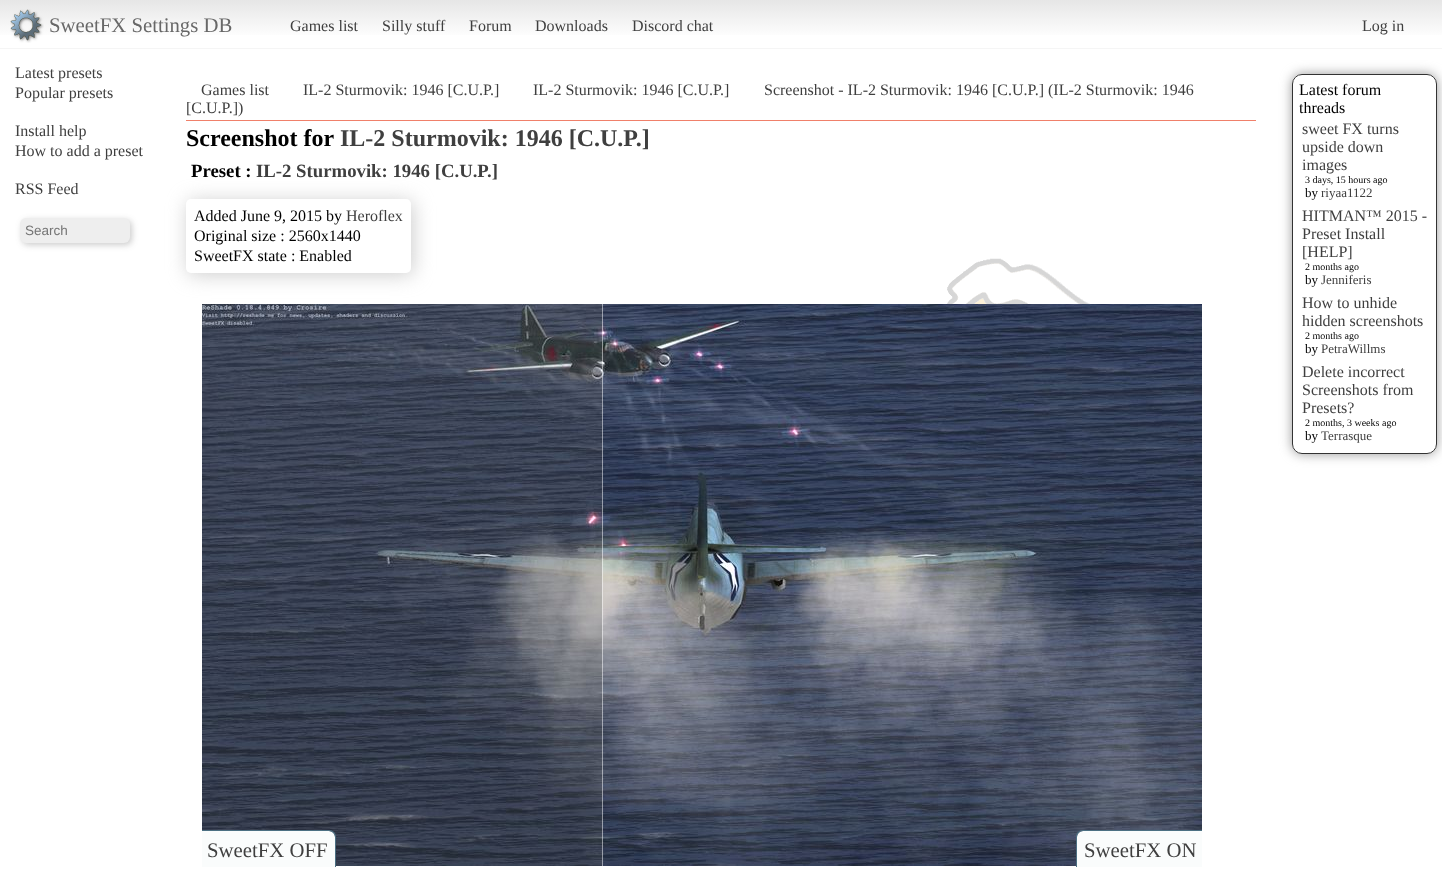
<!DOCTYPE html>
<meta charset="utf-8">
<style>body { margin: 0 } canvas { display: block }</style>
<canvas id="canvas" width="1442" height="894"></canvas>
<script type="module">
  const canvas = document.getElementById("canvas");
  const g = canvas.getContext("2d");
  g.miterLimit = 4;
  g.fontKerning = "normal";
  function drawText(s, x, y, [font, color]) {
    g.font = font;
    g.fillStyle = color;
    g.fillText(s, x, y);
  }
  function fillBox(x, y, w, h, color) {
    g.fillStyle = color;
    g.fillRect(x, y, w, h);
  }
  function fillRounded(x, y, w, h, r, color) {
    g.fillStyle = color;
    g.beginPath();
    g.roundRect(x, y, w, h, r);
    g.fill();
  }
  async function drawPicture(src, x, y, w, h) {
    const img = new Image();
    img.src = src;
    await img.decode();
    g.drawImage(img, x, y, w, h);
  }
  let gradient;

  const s1 = ["20.75px Liberation Serif", "#686868"];
  const s2 = ["16px Liberation Serif", "#3F3F3F"];
  const s3 = ["13.5px Liberation Sans", "#757575"];
  const s4 = ["bold 24px Liberation Serif", "#000000"];
  const s5 = ["bold 24px Liberation Serif", "#3F3F3F"];
  const s6 = ["bold 18.75px Liberation Serif", "#000000"];
  const s7 = ["bold 18.75px Liberation Serif", "#3F3F3F"];
  const s8 = ["16px Liberation Serif", "#000000"];
  const s9 = ["20.75px Liberation Serif", "#3F3F3F"];
  const s10 = ["10px Liberation Serif", "#000000"];
  const s11 = ["13px Liberation Serif", "#000000"];
  const s12 = ["13px Liberation Serif", "#3F3F3F"];

  fillBox(0, 0, 1442, 894, "#FFFFFF");
  await drawPicture("pic1.png", 947, 258, 143, 46);
  gradient = g.createLinearGradient(721, 0, 721, 48);
  gradient.addColorStop(0, "#E6E6E6");
  gradient.addColorStop(0.8, "#FFFFFF");
  g.fillStyle = gradient;
  g.fillRect(0, 0, 1442, 35);
  fillBox(0, 48, 1442, 1, "#F5F5F5");
  await drawPicture("pic2.png", 10, 9, 34, 34);
  drawText("SweetFX Settings DB", 49, 32, s1);
  drawText("Games list", 290, 31, s2);
  drawText("Silly stuff", 382, 31, s2);
  drawText("Forum", 469, 31, s2);
  drawText("Downloads", 535, 31, s2);
  drawText("Discord chat", 632, 31, s2);
  drawText("Log in", 1362, 31, s2);
  drawText("Latest presets", 15, 78, s2);
  drawText("Popular presets", 15, 98, s2);
  drawText("Install help", 15, 136, s2);
  drawText("How to add a preset", 15, 156, s2);
  drawText("RSS Feed", 15, 194, s2);
  g.fillStyle = "rgba(50, 50, 50, 0.25)";
  g.filter = "blur(3px)";
  g.beginPath();
  g.roundRect(22, 220, 110, 25, 6);
  g.fill();
  g.filter = "none";
  fillRounded(20, 218, 110, 25, 6, "#EEEEEE");
  drawText("Search", 25, 235, s3);
  fillBox(186, 120, 1070, 1, "#F0806A");
  drawText("Games list", 201, 95, s2);
  drawText("IL-2 Sturmovik: 1946 [C.U.P.]", 303, 95, s2);
  drawText("IL-2 Sturmovik: 1946 [C.U.P.]", 533, 95, s2);
  drawText("Screenshot - IL-2 Sturmovik: 1946 [C.U.P.] (IL-2 Sturmovik: 1946", 764, 95, s2);
  drawText("[C.U.P.])", 186, 113, s2);
  drawText("Screenshot for", 186, 146, s4);
  drawText("IL-2 Sturmovik: 1946 [C.U.P.]", 340, 146, s5);
  drawText("Preset :", 191, 177, s6);
  drawText("IL-2 Sturmovik: 1946 [C.U.P.]", 256, 177, s7);
  g.fillStyle = "rgba(182, 182, 182, 0.68)";
  g.filter = "blur(10px)";
  g.beginPath();
  g.roundRect(188, 201, 225, 74, 5);
  g.fill();
  g.filter = "none";
  fillRounded(186, 199, 225, 74, 5, "#FFFFFF");
  drawText("Added June 9, 2015 by", 194, 221, s8);
  drawText("Heroflex", 346, 221, s2);
  drawText("Original size : 2560x1440", 194, 241, s8);
  drawText("SweetFX state : Enabled", 194, 261, s8);
  await drawPicture("pic4.png", 602, 304, 600, 562);
  fillBox(602, 304, 1, 566, "rgba(255, 255, 255, 0.5)");
  await drawPicture("pic3.png", 202, 304, 400, 562);
  g.fillStyle = "#FAFCFC";
  g.beginPath();
  g.roundRect(202, 831, 133, 36, [0, 6, 0, 0]);
  g.fill();
  g.fillStyle = "#4C7083";
  g.beginPath();
  g.moveTo(202, 830);
  g.lineTo(329, 830);
  g.bezierCurveTo(333, 830, 336, 833, 336, 837);
  g.lineTo(336, 867);
  g.lineTo(202, 867);
  g.closePath();
  g.moveTo(202, 831);
  g.lineTo(329, 831);
  g.bezierCurveTo(332, 831, 335, 834, 335, 837);
  g.lineTo(335, 867);
  g.lineTo(202, 867);
  g.closePath();
  g.fill("evenodd");
  drawText("SweetFX OFF", 207, 857, s9);
  g.fillStyle = "#FAFCFC";
  g.beginPath();
  g.roundRect(1077, 831, 125, 36, [6, 0, 0, 0]);
  g.fill();
  g.fillStyle = "#4C7083";
  g.beginPath();
  g.moveTo(1083, 830);
  g.lineTo(1202, 830);
  g.lineTo(1202, 867);
  g.lineTo(1076, 867);
  g.lineTo(1076, 837);
  g.bezierCurveTo(1076, 833, 1079, 830, 1083, 830);
  g.closePath();
  g.moveTo(1083, 831);
  g.lineTo(1202, 831);
  g.lineTo(1202, 867);
  g.lineTo(1077, 867);
  g.lineTo(1077, 837);
  g.bezierCurveTo(1077, 834, 1080, 831, 1083, 831);
  g.closePath();
  g.fill("evenodd");
  drawText("SweetFX ON", 1084, 857, s9);
  g.save();
  g.beginPath();
  g.moveTo(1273, 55);
  g.lineTo(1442, 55);
  g.lineTo(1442, 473);
  g.lineTo(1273, 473);
  g.closePath();
  g.moveTo(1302, 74);
  g.lineTo(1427, 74);
  g.bezierCurveTo(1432.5, 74, 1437, 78.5, 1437, 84);
  g.lineTo(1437, 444);
  g.bezierCurveTo(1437, 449.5, 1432.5, 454, 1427, 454);
  g.lineTo(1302, 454);
  g.bezierCurveTo(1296.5, 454, 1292, 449.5, 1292, 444);
  g.lineTo(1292, 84);
  g.bezierCurveTo(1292, 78.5, 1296.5, 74, 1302, 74);
  g.closePath();
  g.clip("evenodd");
  g.fillStyle = "#999999";
  g.filter = "blur(6px)";
  g.beginPath();
  g.roundRect(1292, 74, 145, 380, 10);
  g.fill();
  g.filter = "none";
  g.restore();
  g.beginPath();
  g.roundRect(1292.5, 74.5, 144, 379, 9.5);
  g.strokeStyle = "#333333";
  g.stroke();
  drawText("Latest forum", 1299, 95, s8);
  drawText("threads", 1299, 113, s8);
  drawText("sweet FX turns", 1302, 134, s2);
  drawText("upside down", 1302, 152, s2);
  drawText("images", 1302, 170, s2);
  drawText("3 days, 15 hours ago", 1305, 183, s10);
  drawText("by", 1305, 197, s11);
  drawText("riyaa1122", 1321, 197, s12);
  drawText("HITMAN™ 2015 -", 1302, 221, s2);
  drawText("Preset Install", 1302, 239, s2);
  drawText("[HELP]", 1302, 257, s2);
  drawText("2 months ago", 1305, 270, s10);
  drawText("by", 1305, 284, s11);
  drawText("Jenniferis", 1321, 284, s12);
  drawText("How to unhide", 1302, 308, s2);
  drawText("hidden screenshots", 1302, 326, s2);
  drawText("2 months ago", 1305, 339, s10);
  drawText("by", 1305, 353, s11);
  drawText("PetraWillms", 1321, 353, s12);
  drawText("Delete incorrect", 1302, 377, s2);
  drawText("Screenshots from", 1302, 395, s2);
  drawText("Presets?", 1302, 413, s2);
  drawText("2 months, 3 weeks ago", 1305, 426, s10);
  drawText("by", 1305, 440, s11);
  drawText("Terrasque", 1321, 440, s12);
</script>
